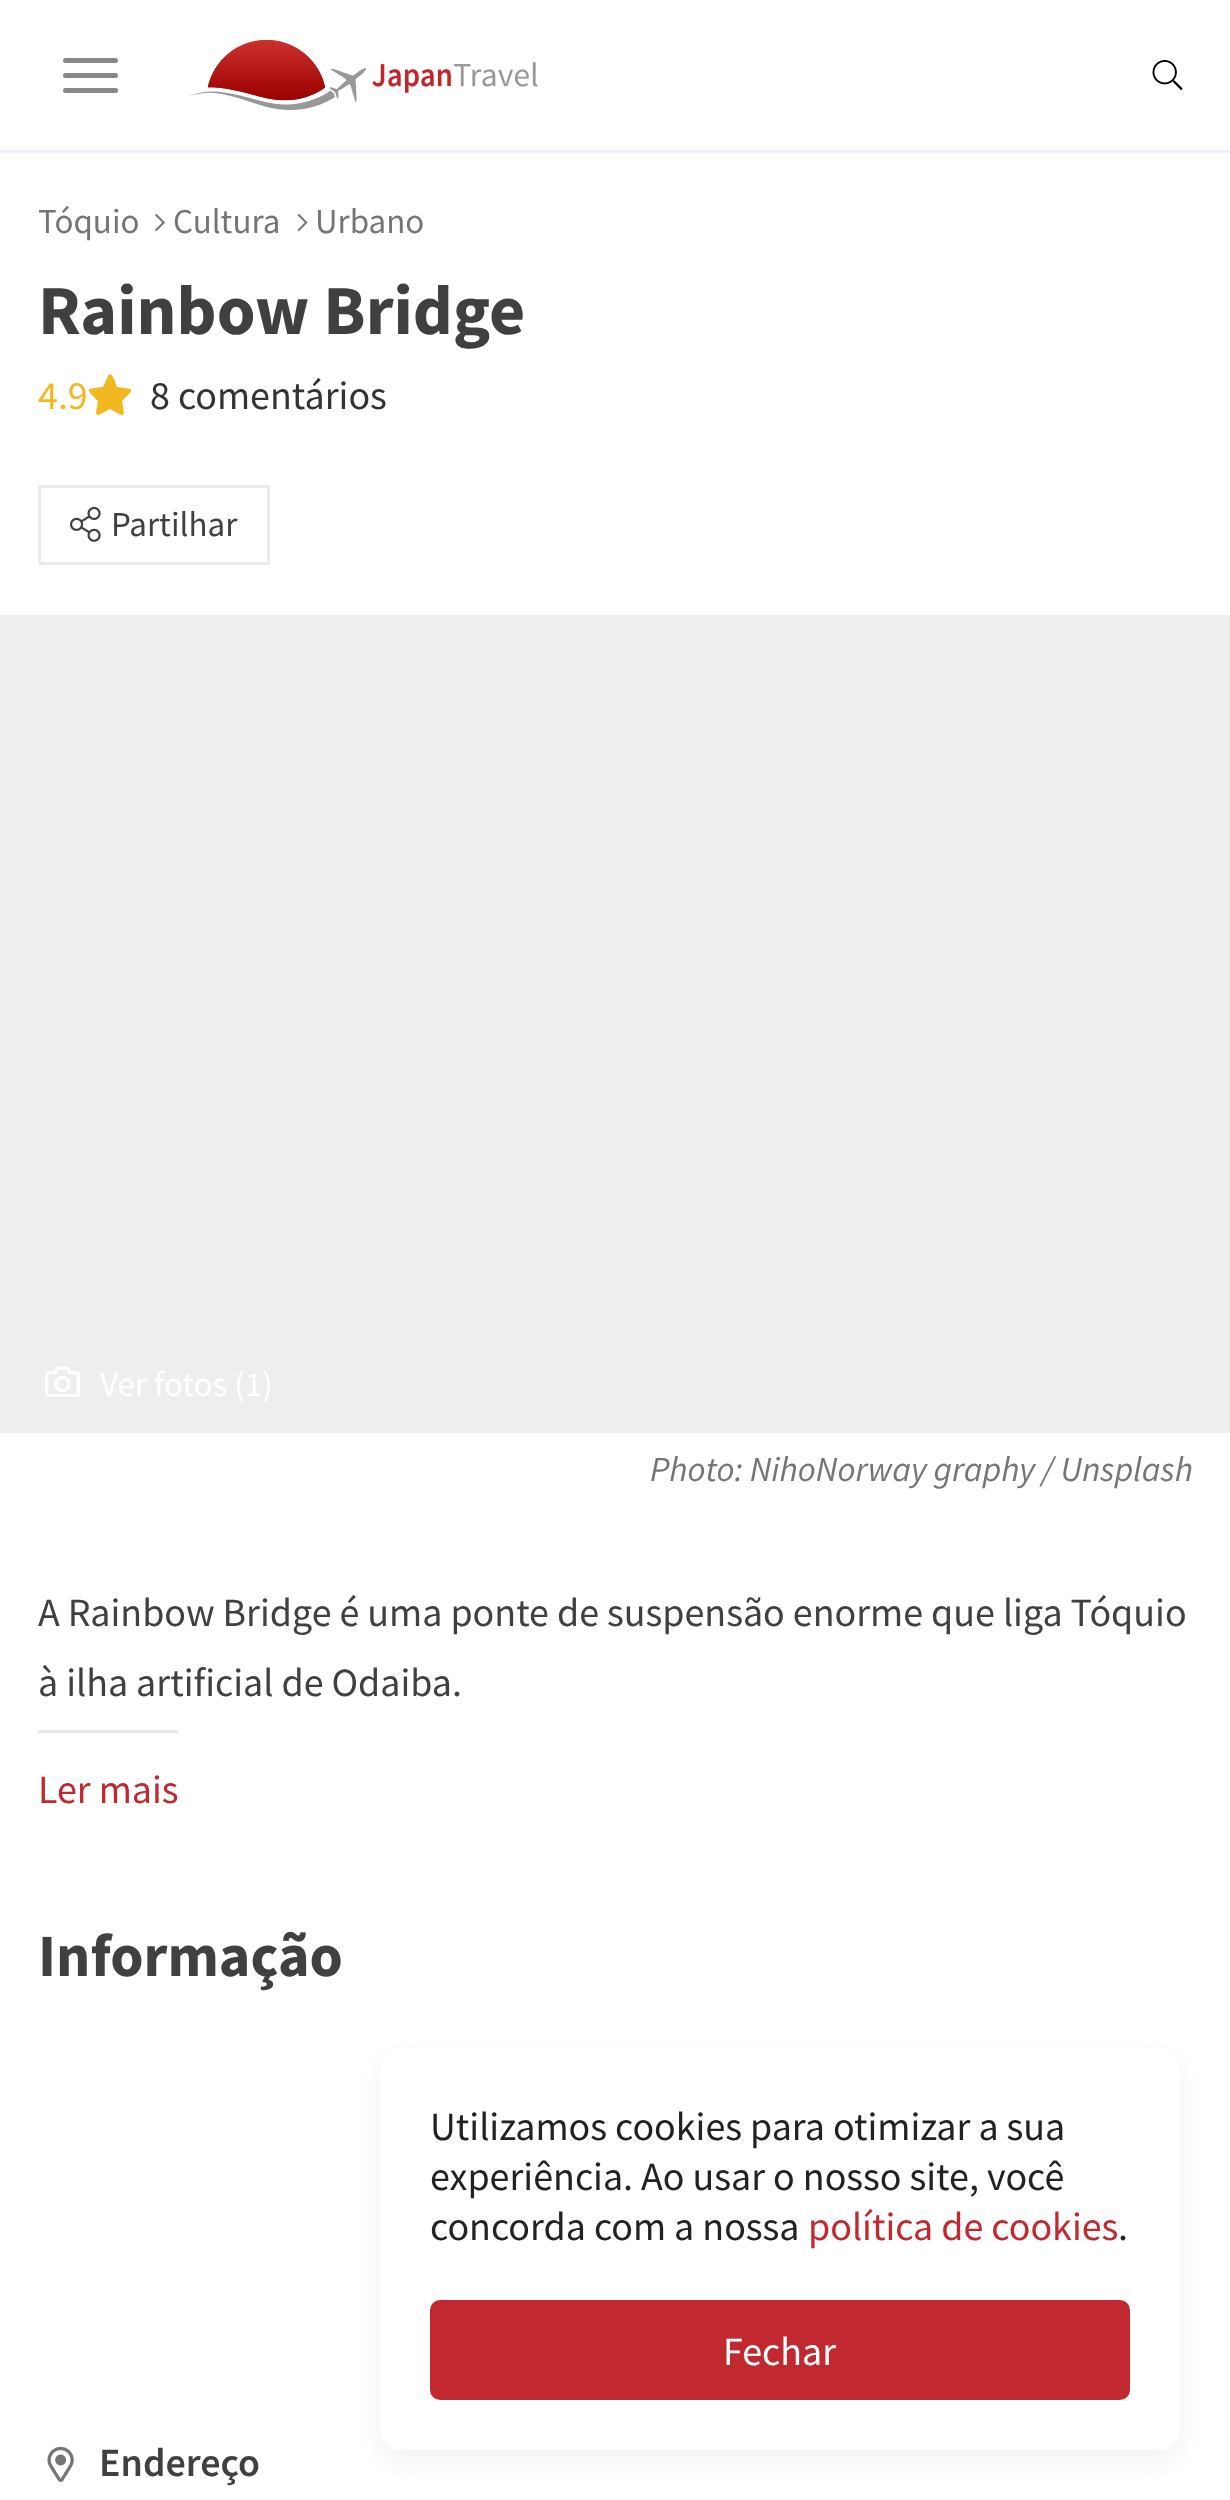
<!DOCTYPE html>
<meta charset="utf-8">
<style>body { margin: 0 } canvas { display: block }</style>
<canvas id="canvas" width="1230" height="2500"></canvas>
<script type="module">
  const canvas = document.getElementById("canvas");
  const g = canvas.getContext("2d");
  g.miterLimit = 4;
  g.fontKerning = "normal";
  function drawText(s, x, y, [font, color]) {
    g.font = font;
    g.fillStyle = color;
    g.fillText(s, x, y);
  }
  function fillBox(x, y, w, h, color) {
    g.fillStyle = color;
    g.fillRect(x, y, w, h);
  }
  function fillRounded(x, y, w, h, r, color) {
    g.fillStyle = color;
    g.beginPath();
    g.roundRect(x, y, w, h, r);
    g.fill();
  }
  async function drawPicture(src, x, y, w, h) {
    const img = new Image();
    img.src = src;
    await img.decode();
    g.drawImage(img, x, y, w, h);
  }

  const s1 = ["35px Source Sans Pro", "#757575"];
  const s2 = ["bold 70px Source Sans Pro", "#404040"];
  const s3 = ["40px Source Sans Pro", "#F1B81F"];
  const s4 = ["40px Source Sans Pro", "#333333"];
  const s5 = ["35px Source Sans Pro", "#404040"];
  const s6 = ["35px Source Sans Pro", "#FFFFFF"];
  const s7 = ["italic 35px Source Sans Pro", "#757575"];
  const s8 = ["40px Source Sans Pro", "#404040"];
  const s9 = ["40px Source Sans Pro", "#C1282F"];
  const s10 = ["bold 60px Source Sans Pro", "#404040"];
  const s11 = ["600 40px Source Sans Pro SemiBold", "#404040"];
  const s12 = ["40px Source Sans Pro", "#222222"];
  const s13 = ["40px Source Sans Pro", "#FFFFFF"];

  fillBox(0, 0, 1230, 2500, "#FFFFFF");
  fillBox(0, 150, 1230, 3, "#EDF0F4");
  fillRounded(63, 58, 55, 5, 2.5, "#888888");
  fillRounded(63, 73, 55, 5, 2.5, "#888888");
  fillRounded(63, 88, 55, 5, 2.5, "#888888");
  await drawPicture("pic1.png", 189, 40, 349, 70);
  await drawPicture("pic2.png", 1152, 60, 31, 30);
  drawText("Tóquio", 38, 233, s1);
  await drawPicture("pic3.png", 155, 213, 10, 19);
  drawText("Cultura", 173, 233, s1);
  await drawPicture("pic4.png", 297, 213, 11, 19);
  drawText("Urbano", 315, 233, s1);
  drawText("Rainbow Bridge", 38, 334, s2);
  drawText("4.9", 38, 409, s3);
  g.beginPath();
  g.moveTo(108, 376);
  g.lineTo(103, 387);
  g.bezierCurveTo(85, 389, 85, 388, 98, 401);
  g.bezierCurveTo(95, 418, 94, 418, 110, 409);
  g.bezierCurveTo(126, 418, 125, 418, 122, 401);
  g.bezierCurveTo(135, 388, 135, 389, 117, 387);
  g.bezierCurveTo(115, 381, 111, 370, 108, 376);
  g.closePath();
  g.fill();
  drawText("8 comentários", 150, 409, s4);
  g.strokeStyle = "#EBEBEB";
  g.lineWidth = 3;
  g.strokeRect(39.5, 486.5, 229, 77);
  await drawPicture("pic5.png", 70, 506, 31, 36);
  drawText("Partilhar", 111, 536, s5);
  fillBox(0, 615, 1230, 818, "#EEEEEE");
  await drawPicture("pic6.png", 45, 1366, 35, 31);
  drawText("Ver fotos (1)", 100, 1396, s6);
  drawText("Photo: NihoNorway graphy / Unsplash", 650, 1481, s7);
  drawText("A Rainbow Bridge é uma ponte de suspensão enorme que liga Tóquio", 38, 1626, s8);
  drawText("à ilha artificial de Odaiba.", 38, 1696, s8);
  drawText("Ler mais", 38, 1803, s9);
  fillBox(38, 1730, 140, 3, "#E6E6E6");
  drawText("Informação", 38, 1976, s10);
  await drawPicture("pic7.png", 47, 2446, 27, 36);
  drawText("Endereço", 99, 2476, s11);
  g.fillStyle = "rgba(0, 0, 0, 0.05)";
  g.filter = "blur(11px)";
  g.beginPath();
  g.roundRect(380, 2060, 800, 400, 20);
  g.fill();
  g.filter = "none";
  fillRounded(380, 2050, 800, 400, 20, "#FFFFFF");
  drawText("Utilizamos cookies para otimizar a sua", 430, 2140, s12);
  drawText("experiência. Ao usar o nosso site, você", 430, 2190, s12);
  drawText("concorda com a nossa", 430, 2240, s12);
  drawText("política de cookies", 808, 2240, s9);
  drawText(".", 1118, 2240, s12);
  fillRounded(430, 2300, 700, 100, 10, "#C1282F");
  drawText("Fechar", 723, 2365, s13);
</script>
